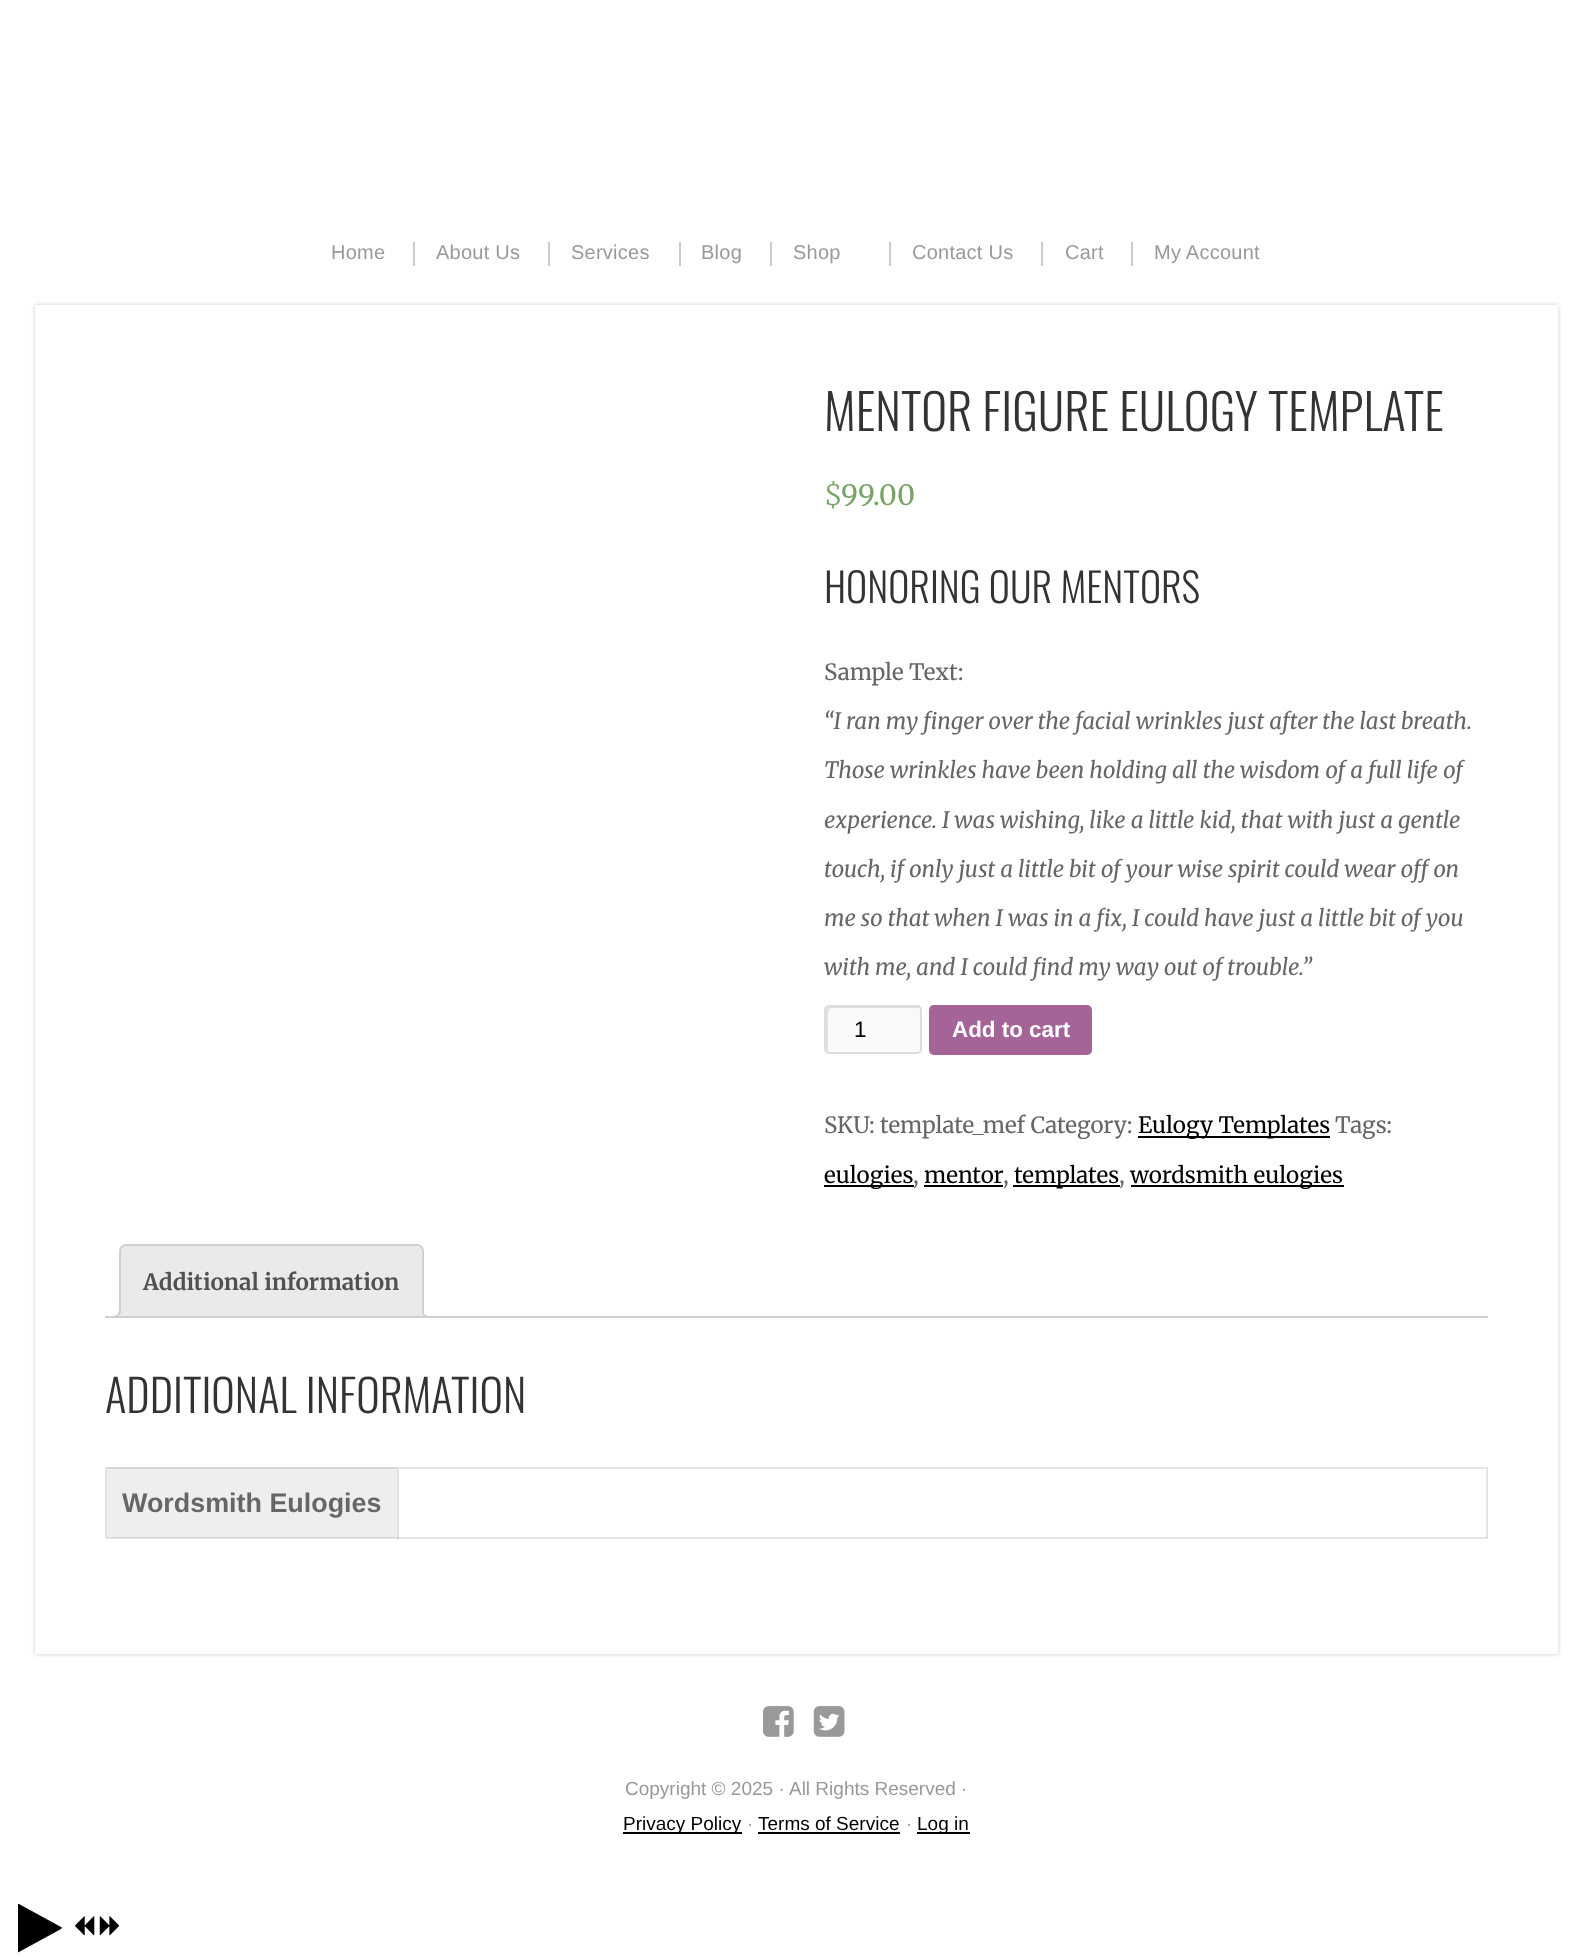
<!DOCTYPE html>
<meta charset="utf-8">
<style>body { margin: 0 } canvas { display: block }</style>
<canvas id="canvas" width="1591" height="1957"></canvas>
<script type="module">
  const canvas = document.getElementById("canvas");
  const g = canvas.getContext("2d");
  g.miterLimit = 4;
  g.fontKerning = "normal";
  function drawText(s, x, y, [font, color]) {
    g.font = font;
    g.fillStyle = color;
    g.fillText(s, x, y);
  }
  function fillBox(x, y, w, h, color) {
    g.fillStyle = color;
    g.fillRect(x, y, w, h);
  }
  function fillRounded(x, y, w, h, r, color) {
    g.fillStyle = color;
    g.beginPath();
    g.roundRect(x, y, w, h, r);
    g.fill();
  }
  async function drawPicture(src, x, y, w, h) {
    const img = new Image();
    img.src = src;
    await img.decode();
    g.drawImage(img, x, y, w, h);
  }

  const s1 = ["20px Liberation Sans", "#999999"];
  const s2 = ["300 49.25px Oswald", "#333333"];
  const s3 = ["300 28px Merriweather", "#77A464"];
  const s4 = ["28px Merriweather", "#77A464"];
  const s5 = ["300 40.25px Oswald", "#333333"];
  const s6 = ["22.4px Merriweather", "#666666"];
  const s7 = ["italic 22.4px Merriweather", "#666666"];
  const s8 = ["22.4px Liberation Sans", "#000000"];
  const s9 = ["bold 22.4px Liberation Sans", "#FFFFFF"];
  const s10 = ["22.4px Merriweather", "#000000"];
  const s11 = ["bold 22.4px Merriweather", "#515151"];
  const s12 = ["300 44.75px Oswald", "#333333"];
  const s13 = ["bold 26.9px Liberation Sans", "#666666"];
  const s14 = ["19px Liberation Sans", "#999999"];
  const s15 = ["19px Liberation Sans", "#000000"];

  fillBox(0, 0, 1591, 1957, "#FFFFFF");
  g.letterSpacing = "0.25px";
  drawText("Home", 331, 259, s1);
  fillBox(413, 242, 2, 24, "#CCCCCC");
  drawText("About Us", 436, 259, s1);
  fillBox(548, 242, 2, 24, "#CCCCCC");
  drawText("Services", 571, 259, s1);
  fillBox(679, 242, 2, 24, "#CCCCCC");
  drawText("Blog", 701, 259, s1);
  fillBox(770, 242, 2, 24, "#CCCCCC");
  drawText("Shop", 793, 259, s1);
  fillBox(889, 242, 2, 24, "#CCCCCC");
  drawText("Contact Us", 912, 259, s1);
  fillBox(1041, 242, 2, 24, "#CCCCCC");
  drawText("Cart", 1065, 259, s1);
  fillBox(1131, 242, 2, 24, "#CCCCCC");
  drawText("My Account", 1154, 259, s1);
  g.fillStyle = "#CCCCCC";
  g.filter = "blur(2px)";
  g.beginPath();
  g.rect(35, 305, 1523, 1349);
  g.fill();
  g.filter = "none";
  fillBox(35, 305, 1523, 1349, "#FFFFFF");
  fillBox(105, 1538, 294, 1, "#E6E6E6");
  fillBox(397, 1537, 1091, 2, "#E6E6E6");
  fillBox(397, 1538, 2, 1, "#CFCFCF");
  fillBox(399, 1467, 1089, 2, "#E6E6E6");
  g.letterSpacing = "0px";
  drawText("MENTOR FIGURE EULOGY TEMPLATE", 824, 431, s2);
  drawText("$", 824, 505, s3);
  drawText("99.00", 841, 505, s4);
  drawText("HONORING OUR MENTORS", 824, 603, s5);
  drawText("Sample Text:", 824, 680, s6);
  drawText("“I ran my finger over the facial wrinkles just after the last breath.", 824, 729, s7);
  drawText("Those wrinkles have been holding all the wisdom of a full life of", 824, 778, s7);
  drawText("experience. I was wishing, like a little kid, that with just a gentle", 824, 828, s7);
  drawText("touch, if only just a little bit of your wise spirit could wear off on", 824, 877, s7);
  drawText("me so that when I was in a fix, I could have just a little bit of you", 824, 926, s7);
  drawText("with me, and I could find my way out of trouble.”", 824, 975, s7);
  fillRounded(824, 1005, 98, 49, 5, "#F9F9F9");
  g.fillStyle = "#E0E0E0";
  g.beginPath();
  g.moveTo(831, 1008);
  g.lineTo(919, 1008);
  g.lineTo(921, 1009);
  g.bezierCurveTo(920, 1007, 919, 1006, 917, 1006);
  g.lineTo(830, 1006);
  g.bezierCurveTo(828, 1006, 826, 1008, 826, 1010);
  g.lineTo(826, 1048);
  g.bezierCurveTo(826, 1050, 827, 1051, 828, 1052);
  g.lineTo(828, 1018);
  g.bezierCurveTo(828, 1017, 827, 1008, 831, 1008);
  g.closePath();
  g.fill();
  g.beginPath();
  g.roundRect(825, 1006, 96, 47, 4);
  g.strokeStyle = "#DDDDDD";
  g.lineWidth = 2;
  g.stroke();
  drawText("1", 854, 1037, s8);
  fillRounded(929, 1005, 163, 50, 5, "#A46497");
  drawText("Add to cart", 952, 1037, s9);
  drawText("SKU: template_mef Category:", 824, 1133, s6);
  fillBox(1138, 1136, 192, 2, "#000000");
  drawText("Eulogy Templates", 1138, 1133, s10);
  drawText("Tags:", 1335, 1133, s6);
  fillBox(824, 1185, 90, 2, "#000000");
  drawText("eulogies", 824, 1183, s10);
  drawText(",", 913, 1183, s6);
  drawText("mentor", 924, 1183, s10);
  drawText(",", 1003, 1183, s6);
  fillBox(924, 1185, 79, 2, "#000000");
  fillBox(1013, 1185, 107, 2, "#000000");
  drawText("templates", 1014, 1183, s10);
  drawText(",", 1119, 1183, s6);
  fillBox(1131, 1185, 213, 2, "#000000");
  drawText("wordsmith eulogies", 1130, 1183, s10);
  g.fillStyle = "#EBE9EB";
  g.beginPath();
  g.roundRect(120, 1245, 303, 72, [6, 6, 0, 0]);
  g.fill();
  g.strokeStyle = "#D3CED2";
  g.stroke();
  drawText("Additional information", 143, 1290, s11);
  g.save();
  g.beginPath();
  g.rect(105, 1244, 1383, 74);
  g.clip();
  g.fillStyle = "#EBE9EB";
  g.beginPath();
  g.moveTo(116, 1317.5);
  g.lineTo(116, 1321);
  g.bezierCurveTo(121, 1321, 124, 1318, 124, 1313);
  g.lineTo(120.5, 1313);
  g.bezierCurveTo(119.5, 1315, 118, 1316.5, 116, 1317.5);
  g.closePath();
  g.fill();
  g.restore();
  g.fillStyle = "#D3CED2";
  g.beginPath();
  g.moveTo(112, 1309);
  g.lineTo(121, 1309);
  g.bezierCurveTo(121, 1315, 118, 1318, 112, 1318);
  g.closePath();
  g.moveTo(112, 1309);
  g.lineTo(119, 1309);
  g.bezierCurveTo(119, 1314, 117, 1316, 112, 1316);
  g.closePath();
  g.fill("evenodd");
  g.save();
  g.beginPath();
  g.rect(105, 1244, 1383, 74);
  g.clip();
  g.fillStyle = "#EBE9EB";
  g.beginPath();
  g.moveTo(418, 1313);
  g.bezierCurveTo(418, 1319, 421.5, 1321, 427, 1321);
  g.lineTo(427, 1317.5);
  g.bezierCurveTo(424.5, 1317, 423, 1315, 422, 1313);
  g.closePath();
  g.fill();
  g.restore();
  g.beginPath();
  g.moveTo(422, 1309);
  g.lineTo(430.5, 1309);
  g.lineTo(430.5, 1318);
  g.bezierCurveTo(426, 1318, 422, 1316, 422, 1311);
  g.closePath();
  g.moveTo(423.5, 1309);
  g.lineTo(430.5, 1309);
  g.lineTo(430.5, 1316);
  g.bezierCurveTo(427, 1316, 423.5, 1315, 423.5, 1311);
  g.closePath();
  g.fill("evenodd");
  fillBox(105, 1316, 1383, 2, "#D3CED2");
  drawText("ADDITIONAL INFORMATION", 105, 1413, s12);
  fillBox(107, 1469, 290, 68, "#EEEEEE");
  fillBox(107, 1537, 292, 1, "#D6D6D6");
  fillBox(107, 1467, 292, 2, "#D6D6D6");
  fillBox(105, 1467, 2, 71, "#E4E4E4");
  drawText("Wordsmith Eulogies", 122, 1512, s13);
  fillBox(1486, 1467, 2, 71, "#E4E4E4");
  fillBox(1486, 1537, 2, 1, "#CDCDCD");
  fillBox(397, 1467, 2, 71, "#E4E4E4");
  fillBox(397, 1537, 2, 1, "#CDCDCD");
  await drawPicture("pic1.png", 763, 1706, 31, 31);
  await drawPicture("pic2.png", 813, 1706, 32, 31);
  drawText("Copyright © 2025 · All Rights Reserved ·", 625, 1795, s14);
  fillBox(623, 1832, 119, 2, "#000000");
  drawText("Privacy Policy", 623, 1830, s15);
  drawText("·", 747, 1830, s14);
  drawText("Terms of Service", 758, 1830, s15);
  fillBox(758, 1832, 142, 2, "#000000");
  drawText("·", 906, 1830, s14);
  fillBox(917, 1832, 53, 2, "#000000");
  drawText("Log in", 917, 1830, s15);
  g.save();
  g.beginPath();
  g.rect(18, 1901, 103, 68);
  g.clip();
  g.beginPath();
  g.moveTo(61, 1929);
  g.bezierCurveTo(62, 1928, 62, 1927, 61, 1927);
  g.lineTo(19, 1904);
  g.lineTo(18, 1904);
  g.lineTo(18, 1943);
  g.bezierCurveTo(18, 1950, 17, 1953, 19, 1952);
  g.closePath();
  g.fill();
  g.restore();
  await drawPicture("pic3.png", 75, 1916, 20, 20);
  await drawPicture("pic4.png", 99, 1916, 20, 20);
</script>
